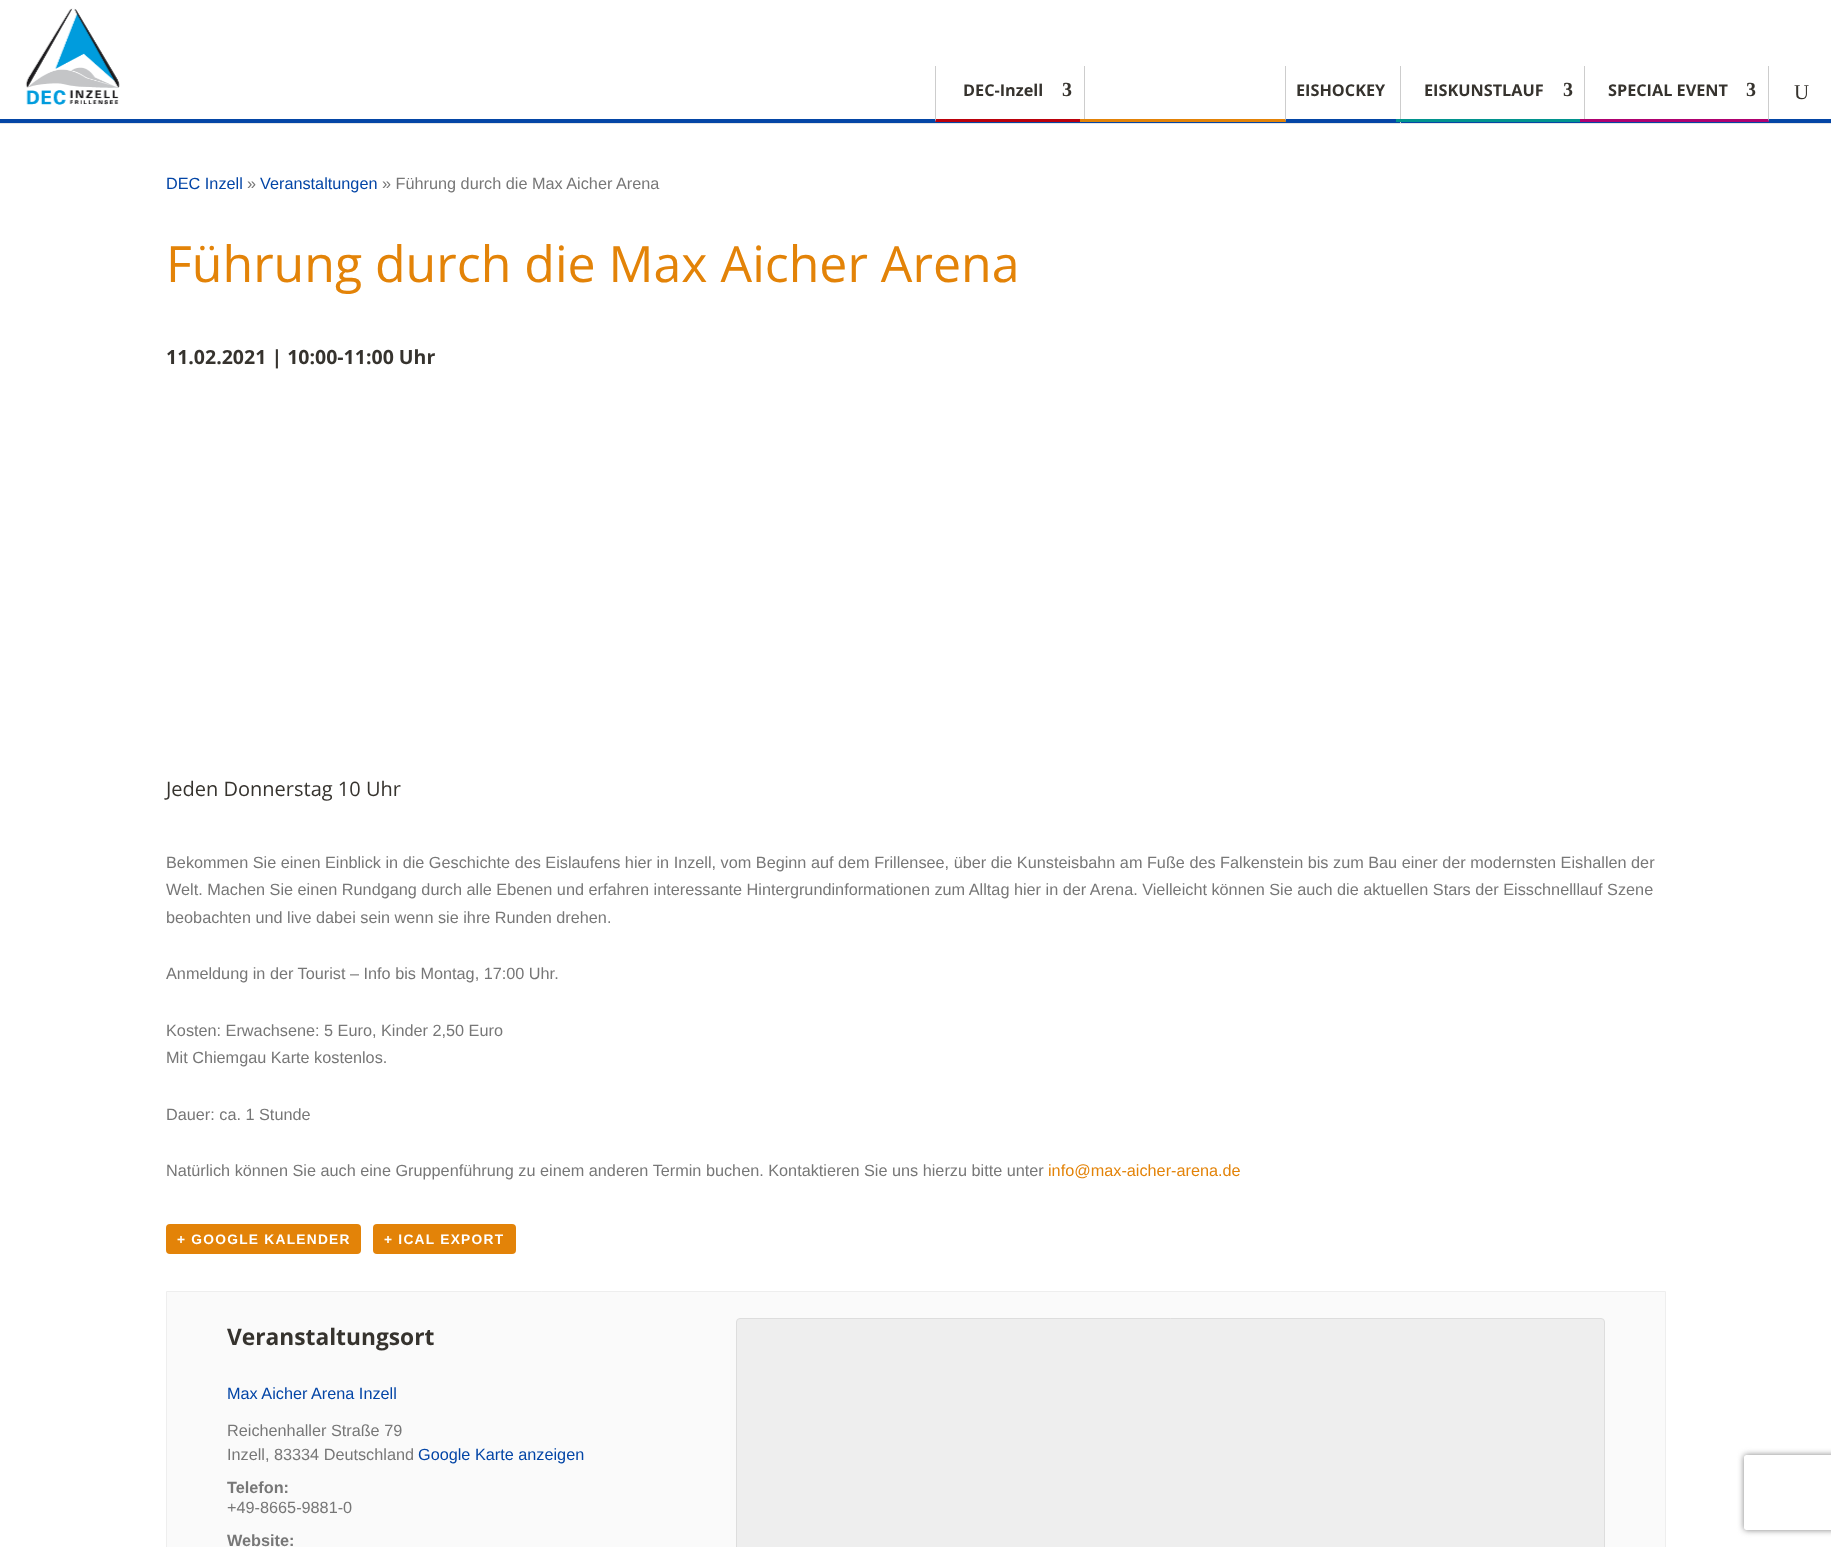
<!DOCTYPE html>
<meta charset="utf-8">
<style>body { margin: 0 } canvas { display: block }</style>
<canvas id="canvas" width="1831" height="1547"></canvas>
<script type="module">
  const canvas = document.getElementById("canvas");
  const g = canvas.getContext("2d");
  g.miterLimit = 4;
  g.fontKerning = "normal";
  function drawText(s, x, y, [font, color]) {
    g.font = font;
    g.fillStyle = color;
    g.fillText(s, x, y);
  }
  function fillBox(x, y, w, h, color) {
    g.fillStyle = color;
    g.fillRect(x, y, w, h);
  }
  function fillRounded(x, y, w, h, r, color) {
    g.fillStyle = color;
    g.beginPath();
    g.roundRect(x, y, w, h, r);
    g.fill();
  }
  async function drawPicture(src, x, y, w, h) {
    const img = new Image();
    img.src = src;
    await img.decode();
    g.drawImage(img, x, y, w, h);
  }

  const s1 = ["bold 16.25px Open Sans", "#36332E"];
  const s2 = ["bold 20px Liberation Serif", "#36332E"];
  const s3 = ["21px Liberation Serif", "#36332E"];
  const s4 = ["16.25px Liberation Sans", "#0345A6"];
  const s5 = ["16.25px Liberation Sans", "#777777"];
  const s6 = ["50px Open Sans", "#E38308"];
  const s7 = ["bold 19.5px Open Sans", "#36332E"];
  const s8 = ["20px Open Sans", "#36332E"];
  const s9 = ["16.25px Liberation Sans", "#E38308"];
  const s10 = ["bold 13.75px Liberation Sans", "#FFFFFF"];
  const s11 = ["bold 22.75px Open Sans", "#36332E"];
  const s12 = ["bold 16.25px Liberation Sans", "#777777"];

  fillBox(0, 0, 1831, 1547, "#FFFFFF");
  fillBox(0, 123, 1831, 1, "#E6E6E6");
  fillBox(0, 119, 1831, 4, "#0446A6");
  await drawPicture("pic1.png", 25, 8, 95, 97);
  g.fillStyle = "#CDCDCD";
  g.beginPath();
  g.moveTo(1085, 66);
  g.lineTo(1085, 122);
  g.lineTo(1084, 119);
  g.lineTo(1084, 66);
  g.closePath();
  g.fill();
  g.fillStyle = "#BB010C";
  g.beginPath();
  g.moveTo(1085, 122);
  g.lineTo(935, 122);
  g.lineTo(936, 119);
  g.lineTo(1084, 119);
  g.closePath();
  g.fill();
  g.fillStyle = "#CDCDCD";
  g.beginPath();
  g.moveTo(935, 122);
  g.lineTo(935, 66);
  g.lineTo(936, 66);
  g.lineTo(936, 119);
  g.closePath();
  g.fill();
  drawText("DEC-Inzell", 963, 96, s1);
  drawText("3", 1062, 96, s2);
  g.fillStyle = "#CDCDCD";
  g.beginPath();
  g.moveTo(1286, 66);
  g.lineTo(1286, 122);
  g.lineTo(1285, 119);
  g.lineTo(1285, 66);
  g.closePath();
  g.fill();
  g.fillStyle = "#E38308";
  g.beginPath();
  g.moveTo(1286, 122);
  g.lineTo(1080, 122);
  g.lineTo(1080, 119);
  g.lineTo(1285, 119);
  g.closePath();
  g.fill();
  fillBox(1400, 66, 1, 57, "#CDCDCD");
  drawText("EISHOCKEY", 1296, 96, s1);
  g.fillStyle = "#CDCDCD";
  g.beginPath();
  g.moveTo(1585, 66);
  g.lineTo(1585, 122);
  g.lineTo(1584, 119);
  g.lineTo(1584, 66);
  g.closePath();
  g.fill();
  g.fillStyle = "#01948E";
  g.beginPath();
  g.moveTo(1585, 122);
  g.lineTo(1396, 122);
  g.lineTo(1396, 119);
  g.lineTo(1584, 119);
  g.closePath();
  g.fill();
  drawText("EISKUNSTLAUF", 1424, 96, s1);
  drawText("3", 1563, 96, s2);
  g.fillStyle = "#CDCDCD";
  g.beginPath();
  g.moveTo(1769, 66);
  g.lineTo(1769, 122);
  g.lineTo(1768, 119);
  g.lineTo(1768, 66);
  g.closePath();
  g.fill();
  g.fillStyle = "#AF0170";
  g.beginPath();
  g.moveTo(1769, 122);
  g.lineTo(1580, 122);
  g.lineTo(1580, 119);
  g.lineTo(1768, 119);
  g.closePath();
  g.fill();
  drawText("SPECIAL EVENT", 1608, 96, s1);
  drawText("3", 1746, 96, s2);
  drawText("U", 1794, 99, s3);
  drawText("DEC Inzell", 166, 189, s4);
  drawText("»", 247, 189, s5);
  drawText("Veranstaltungen", 260, 189, s4);
  drawText("» Führung durch die Max Aicher Arena", 382, 189, s5);
  drawText("Führung durch die Max Aicher Arena", 166, 282, s6);
  drawText("11.02.2021 | 10:00-11:00 Uhr", 166, 364, s7);
  drawText("Jeden Donnerstag 10 Uhr", 166, 796, s8);
  drawText("Bekommen Sie einen Einblick in die Geschichte des Eislaufens hier in Inzell, vom Beginn auf dem Frillensee, über die Kunsteisbahn am Fuße des Falkenstein bis zum Bau einer der modernsten Eishallen der", 166, 868, s5);
  drawText("Welt. Machen Sie einen Rundgang durch alle Ebenen und erfahren interessante Hintergrundinformationen zum Alltag hier in der Arena. Vielleicht können Sie auch die aktuellen Stars der Eisschnelllauf Szene", 166, 895, s5);
  drawText("beobachten und live dabei sein wenn sie ihre Runden drehen.", 166, 923, s5);
  drawText("Anmeldung in der Tourist – Info bis Montag, 17:00 Uhr.", 166, 979, s5);
  drawText("Kosten: Erwachsene: 5 Euro, Kinder 2,50 Euro", 166, 1036, s5);
  drawText("Mit Chiemgau Karte kostenlos.", 166, 1063, s5);
  drawText("Dauer: ca. 1 Stunde", 166, 1120, s5);
  drawText("Natürlich können Sie auch eine Gruppenführung zu einem anderen Termin buchen. Kontaktieren Sie uns hierzu bitte unter", 166, 1176, s5);
  drawText("info@max-aicher-arena.de", 1048, 1176, s9);
  fillRounded(166, 1224, 195, 30, 4, "#E38308");
  g.letterSpacing = "1.25px";
  drawText("+ GOOGLE KALENDER", 177, 1244, s10);
  fillRounded(373, 1224, 143, 30, 4, "#E38308");
  drawText("+ ICAL EXPORT", 384, 1244, s10);
  g.fillStyle = "#FAFAFA";
  g.beginPath();
  g.rect(166.5, 1291.5, 1499, 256);
  g.fill();
  g.strokeStyle = "#EEEEEE";
  g.stroke();
  g.letterSpacing = "0px";
  drawText("Veranstaltungsort", 227, 1345, s11);
  drawText("Max Aicher Arena Inzell", 227, 1399, s4);
  drawText("Reichenhaller Straße 79", 227, 1436, s5);
  drawText("Inzell, 83334 Deutschland", 227, 1460, s5);
  drawText("Google Karte anzeigen", 418, 1460, s4);
  drawText("Telefon:", 227, 1493, s12);
  drawText("+49-8665-9881-0", 227, 1513, s5);
  drawText("Website:", 227, 1546, s12);
  g.fillStyle = "#EEEEEE";
  g.beginPath();
  g.roundRect(736.5, 1318.5, 868, 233, 3.5);
  g.fill();
  g.strokeStyle = "#DDDDDD";
  g.stroke();
  g.save();
  g.beginPath();
  g.moveTo(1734, 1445);
  g.lineTo(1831, 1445);
  g.lineTo(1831, 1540);
  g.lineTo(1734, 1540);
  g.closePath();
  g.moveTo(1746.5, 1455);
  g.lineTo(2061.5, 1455);
  g.bezierCurveTo(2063, 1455, 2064, 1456, 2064, 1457.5);
  g.lineTo(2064, 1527.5);
  g.bezierCurveTo(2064, 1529, 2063, 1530, 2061.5, 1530);
  g.lineTo(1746.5, 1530);
  g.bezierCurveTo(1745, 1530, 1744, 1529, 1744, 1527.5);
  g.lineTo(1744, 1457.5);
  g.bezierCurveTo(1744, 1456, 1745, 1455, 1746.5, 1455);
  g.closePath();
  g.clip("evenodd");
  g.fillStyle = "#808080";
  g.filter = "blur(3px)";
  g.beginPath();
  g.roundRect(1744, 1455, 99, 75, 2.5);
  g.fill();
  g.filter = "none";
  g.restore();
</script>
